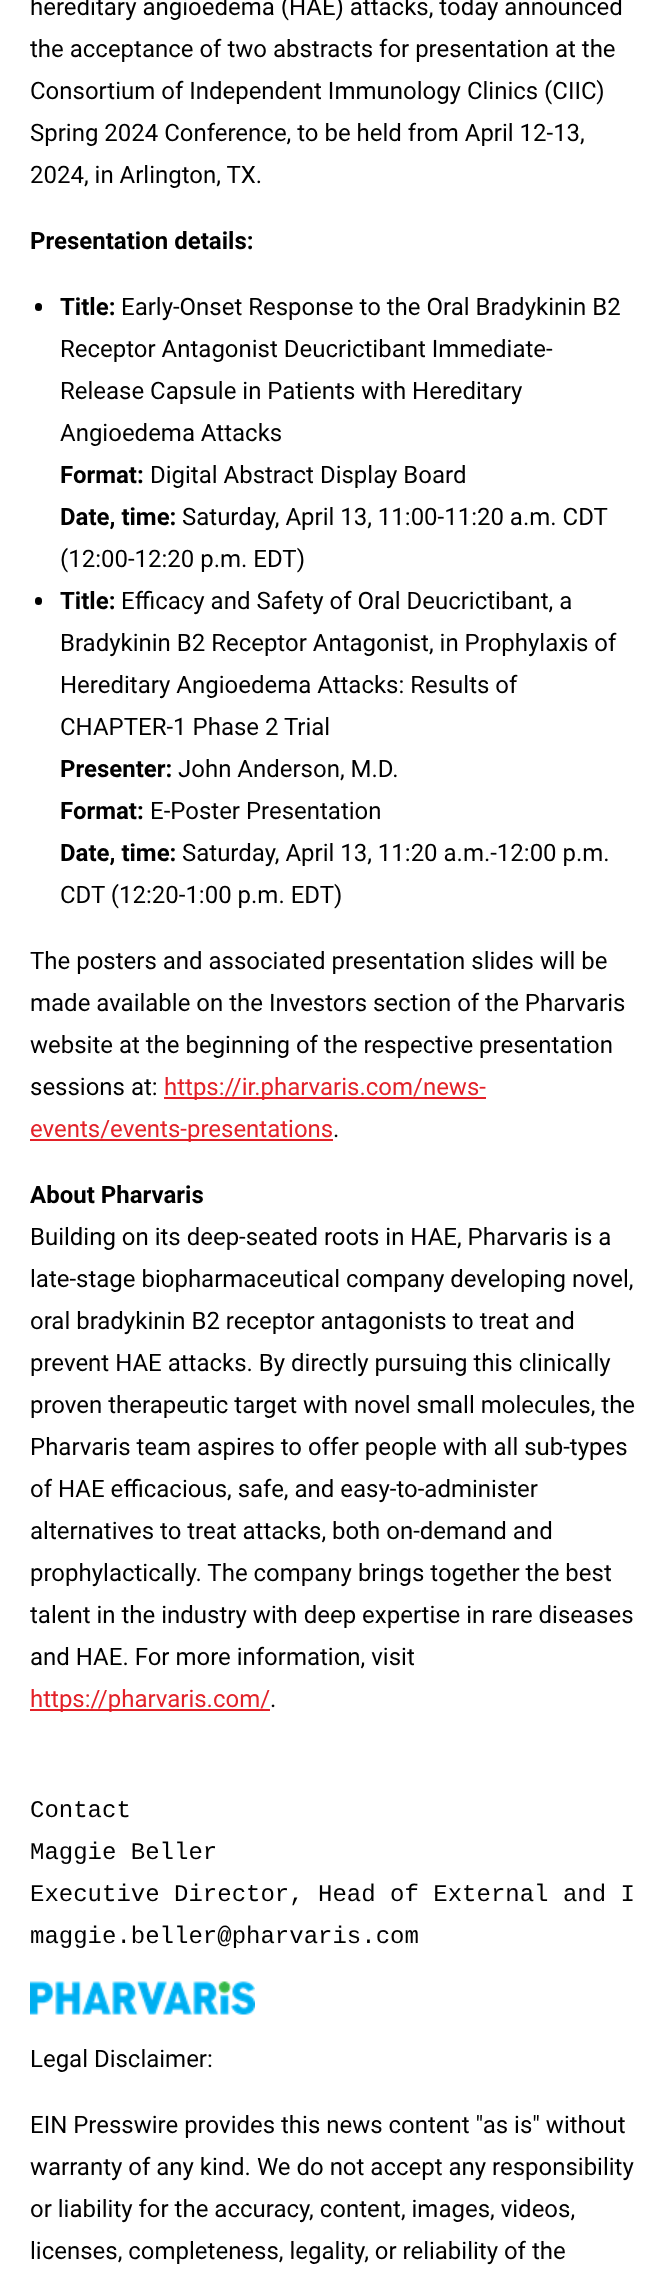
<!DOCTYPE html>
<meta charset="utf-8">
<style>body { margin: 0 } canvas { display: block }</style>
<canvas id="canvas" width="666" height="2276"></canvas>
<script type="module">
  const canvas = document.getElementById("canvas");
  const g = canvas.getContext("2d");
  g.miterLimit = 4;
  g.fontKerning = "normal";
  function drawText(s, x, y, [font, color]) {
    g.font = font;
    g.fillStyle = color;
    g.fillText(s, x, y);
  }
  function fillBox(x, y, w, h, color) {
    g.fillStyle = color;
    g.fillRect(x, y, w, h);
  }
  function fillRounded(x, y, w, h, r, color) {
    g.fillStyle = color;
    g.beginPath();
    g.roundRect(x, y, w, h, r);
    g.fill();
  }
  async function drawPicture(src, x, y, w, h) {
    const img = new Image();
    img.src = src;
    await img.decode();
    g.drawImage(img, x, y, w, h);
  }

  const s1 = ["24px Roboto", "#000000"];
  const s2 = ["bold 24px Roboto", "#000000"];
  const s3 = ["24px Roboto", "#E32128"];
  const s4 = ["24px Liberation Mono", "#000000"];

  fillBox(0, 0, 666, 2276, "#FFFFFF");
  drawText("hereditary angioedema (HAE) attacks, today announced", 30, 15, s1);
  drawText("the acceptance of two abstracts for presentation at the", 30, 57, s1);
  drawText("Consortium of Independent Immunology Clinics (CIIC)", 30, 99, s1);
  drawText("Spring 2024 Conference, to be held from April 12-13,", 30, 141, s1);
  drawText("2024, in Arlington, TX.", 30, 183, s1);
  drawText("Presentation details:", 30, 249, s2);
  fillRounded(35, 303, 7, 8, 3.5, "#000000");
  drawText("Title:", 60, 315, s2);
  drawText("Early-Onset Response to the Oral Bradykinin B2", 121, 315, s1);
  drawText("Receptor Antagonist Deucrictibant Immediate-", 60, 357, s1);
  drawText("Release Capsule in Patients with Hereditary", 60, 399, s1);
  drawText("Angioedema Attacks", 60, 441, s1);
  drawText("Format:", 60, 483, s2);
  drawText("Digital Abstract Display Board", 150, 483, s1);
  drawText("Date, time:", 60, 525, s2);
  drawText("Saturday, April 13, 11:00-11:20 a.m. CDT", 182, 525, s1);
  drawText("(12:00-12:20 p.m. EDT)", 60, 567, s1);
  fillRounded(35, 597, 7, 8, 3.5, "#000000");
  drawText("Title:", 60, 609, s2);
  drawText("Efficacy and Safety of Oral Deucrictibant, a", 121, 609, s1);
  drawText("Bradykinin B2 Receptor Antagonist, in Prophylaxis of", 60, 651, s1);
  drawText("Hereditary Angioedema Attacks: Results of", 60, 693, s1);
  drawText("CHAPTER-1 Phase 2 Trial", 60, 735, s1);
  drawText("Presenter:", 60, 777, s2);
  drawText("John Anderson, M.D.", 178, 777, s1);
  drawText("Format:", 60, 819, s2);
  drawText("E-Poster Presentation", 150, 819, s1);
  drawText("Date, time:", 60, 861, s2);
  drawText("Saturday, April 13, 11:20 a.m.-12:00 p.m.", 182, 861, s1);
  drawText("CDT (12:20-1:00 p.m. EDT)", 60, 903, s1);
  drawText("The posters and associated presentation slides will be", 30, 969, s1);
  drawText("made available on the Investors section of the Pharvaris", 30, 1011, s1);
  drawText("website at the beginning of the respective presentation", 30, 1053, s1);
  drawText("sessions at:", 30, 1095, s1);
  fillBox(164, 1097, 322, 2, "#E32128");
  drawText("https://ir.pharvaris.com/news-", 164, 1095, s3);
  fillBox(30, 1139, 303, 2, "#E32128");
  drawText("events/events-presentations", 30, 1137, s3);
  drawText(".", 333, 1137, s1);
  drawText("About Pharvaris", 30, 1203, s2);
  drawText("Building on its deep-seated roots in HAE, Pharvaris is a", 30, 1245, s1);
  drawText("late-stage biopharmaceutical company developing novel,", 30, 1287, s1);
  drawText("oral bradykinin B2 receptor antagonists to treat and", 30, 1329, s1);
  drawText("prevent HAE attacks. By directly pursuing this clinically", 30, 1371, s1);
  drawText("proven therapeutic target with novel small molecules, the", 30, 1413, s1);
  drawText("Pharvaris team aspires to offer people with all sub-types", 30, 1455, s1);
  drawText("of HAE efficacious, safe, and easy-to-administer", 30, 1497, s1);
  drawText("alternatives to treat attacks, both on-demand and", 30, 1539, s1);
  drawText("prophylactically. The company brings together the best", 30, 1581, s1);
  drawText("talent in the industry with deep expertise in rare diseases", 30, 1623, s1);
  drawText("and HAE. For more information, visit", 30, 1665, s1);
  fillBox(30, 1709, 240, 2, "#E32128");
  drawText("https://pharvaris.com/", 30, 1707, s3);
  drawText(".", 270, 1707, s1);
  drawText("Contact", 30, 1817, s4);
  drawText("Maggie Beller", 30, 1859, s4);
  drawText("Executive Director, Head of External and I", 30, 1901, s4);
  drawText("maggie.beller@pharvaris.com", 30, 1943, s4);
  await drawPicture("pic1.png", 30, 1981, 225, 34);
  drawText("Legal Disclaimer:", 30, 2067, s1);
  drawText("EIN Presswire provides this news content \"as is\" without", 30, 2133, s1);
  drawText("warranty of any kind. We do not accept any responsibility", 30, 2175, s1);
  drawText("or liability for the accuracy, content, images, videos,", 30, 2217, s1);
  drawText("licenses, completeness, legality, or reliability of the", 30, 2259, s1);
</script>
